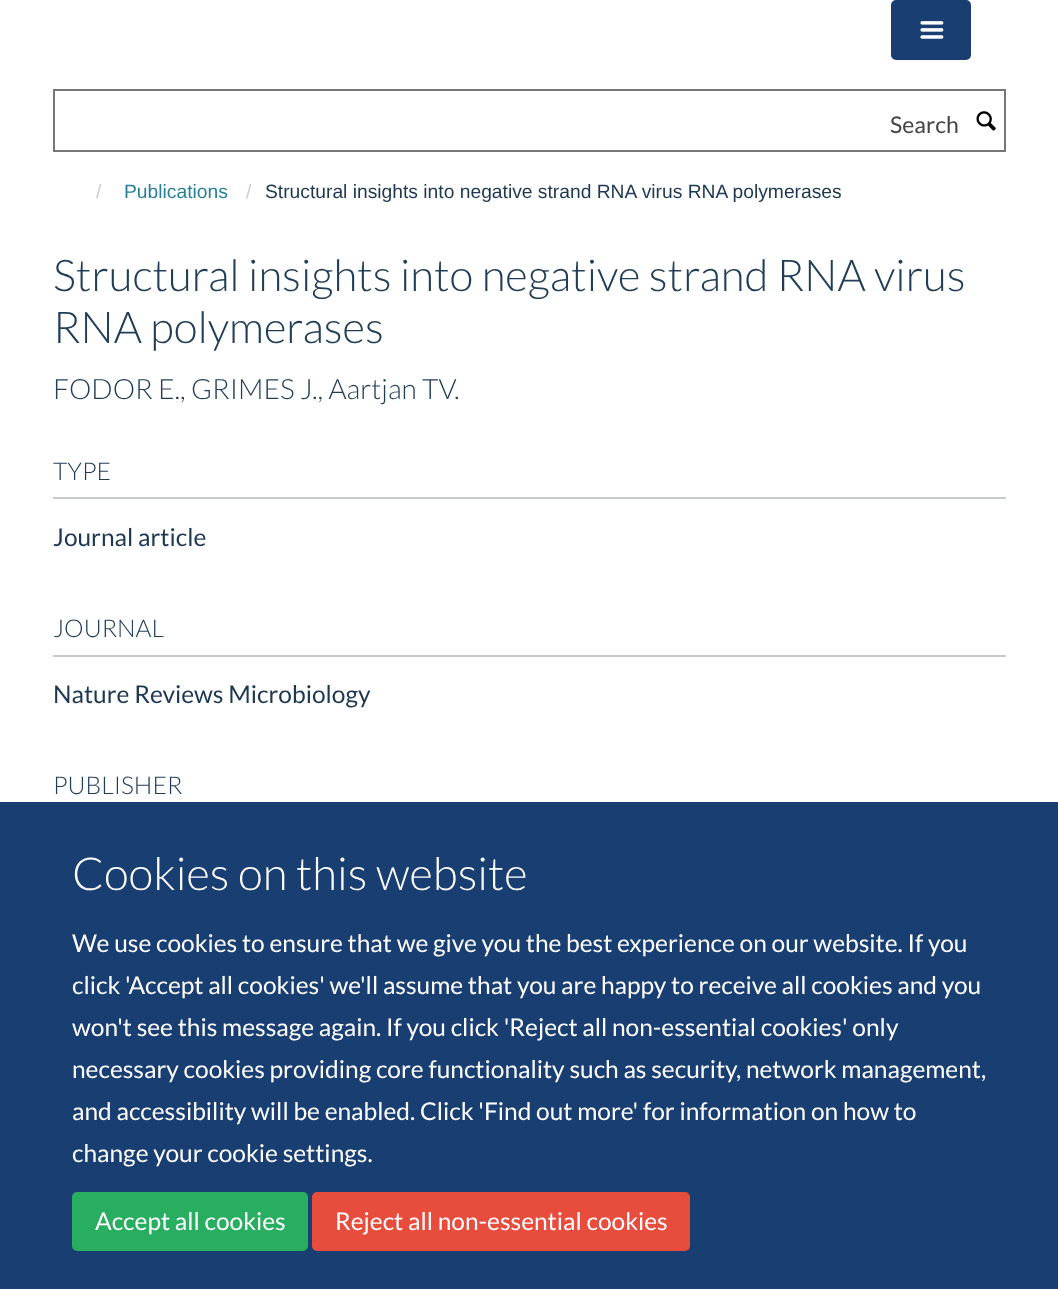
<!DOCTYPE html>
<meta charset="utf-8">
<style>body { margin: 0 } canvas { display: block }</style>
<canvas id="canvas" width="1058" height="1289"></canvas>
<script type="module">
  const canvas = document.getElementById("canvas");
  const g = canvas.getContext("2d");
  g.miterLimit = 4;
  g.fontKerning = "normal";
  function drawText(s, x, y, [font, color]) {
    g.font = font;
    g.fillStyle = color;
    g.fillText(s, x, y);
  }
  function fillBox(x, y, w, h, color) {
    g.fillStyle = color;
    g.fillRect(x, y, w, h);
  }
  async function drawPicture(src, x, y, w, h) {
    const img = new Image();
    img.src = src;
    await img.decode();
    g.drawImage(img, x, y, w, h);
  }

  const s1 = ["23px Lato", "#444444"];
  const s2 = ["19.25px Liberation Sans", "#CCCCCC"];
  const s3 = ["19.25px Liberation Sans", "#298096"];
  const s4 = ["19.25px Liberation Sans", "#1D3850"];
  const s5 = ["300 43.75px Lato", "#203E58"];
  const s6 = ["300 28px Lato", "#203E58"];
  const s7 = ["300 24.5px Lato", "#203E58"];
  const s8 = ["24.5px Lato", "#1D3850"];
  const s9 = ["300 45.5px Lato", "#FFFFFF"];
  const s10 = ["24.5px Lato", "#FFFFFF"];

  fillBox(0, 0, 1058, 1289, "#FFFFFF");
  g.fillStyle = "#193E72";
  g.beginPath();
  g.roundRect(892, 1, 78, 58, 4);
  g.fill();
  g.strokeStyle = "#193E72";
  g.lineWidth = 2;
  g.stroke();
  await drawPicture("pic1.png", 920, 21, 24, 18);
  g.strokeStyle = "#777777";
  g.strokeRect(54, 90, 951, 61);
  drawText("Search", 890, 133, s1);
  await drawPicture("pic2.png", 976, 111, 20, 20);
  drawText("/", 96, 198, s2);
  drawText("Publications", 124, 198, s3);
  drawText("/", 246, 198, s2);
  drawText("Structural insights into negative strand RNA virus RNA polymerases", 265, 198, s4);
  drawText("Structural insights into negative strand RNA virus", 53, 291, s5);
  drawText("RNA polymerases", 53, 343, s5);
  drawText("FODOR E., GRIMES J., Aartjan TV.", 53, 399, s6);
  fillBox(53, 497, 953, 2, "#C6CACF");
  drawText("TYPE", 53, 480, s7);
  drawText("Journal article", 53, 546, s8);
  fillBox(53, 655, 953, 2, "#C6CACF");
  drawText("JOURNAL", 53, 637, s7);
  drawText("Nature Reviews Microbiology", 53, 703, s8);
  drawText("PUBLISHER", 53, 794, s7);
  fillBox(0, 802, 1058, 487, "#193E72");
  drawText("Cookies on this website", 72, 890, s9);
  drawText("We use cookies to ensure that we give you the best experience on our website. If you", 72, 952, s10);
  drawText("click 'Accept all cookies' we'll assume that you are happy to receive all cookies and you", 72, 994, s10);
  drawText("won't see this message again. If you click 'Reject all non-essential cookies' only", 72, 1036, s10);
  drawText("necessary cookies providing core functionality such as security, network management,", 72, 1078, s10);
  drawText("and accessibility will be enabled. Click 'Find out more' for information on how to", 72, 1120, s10);
  drawText("change your cookie settings.", 72, 1162, s10);
  g.fillStyle = "#27AE60";
  g.beginPath();
  g.roundRect(73, 1193, 234, 57, 4);
  g.fill();
  g.strokeStyle = "#27AE60";
  g.stroke();
  drawText("Accept all cookies", 95, 1230, s10);
  g.fillStyle = "#E74C3C";
  g.beginPath();
  g.roundRect(313, 1193, 376, 57, 4);
  g.fill();
  g.strokeStyle = "#E74C3C";
  g.stroke();
  drawText("Reject all non-essential cookies", 335, 1230, s10);
</script>
